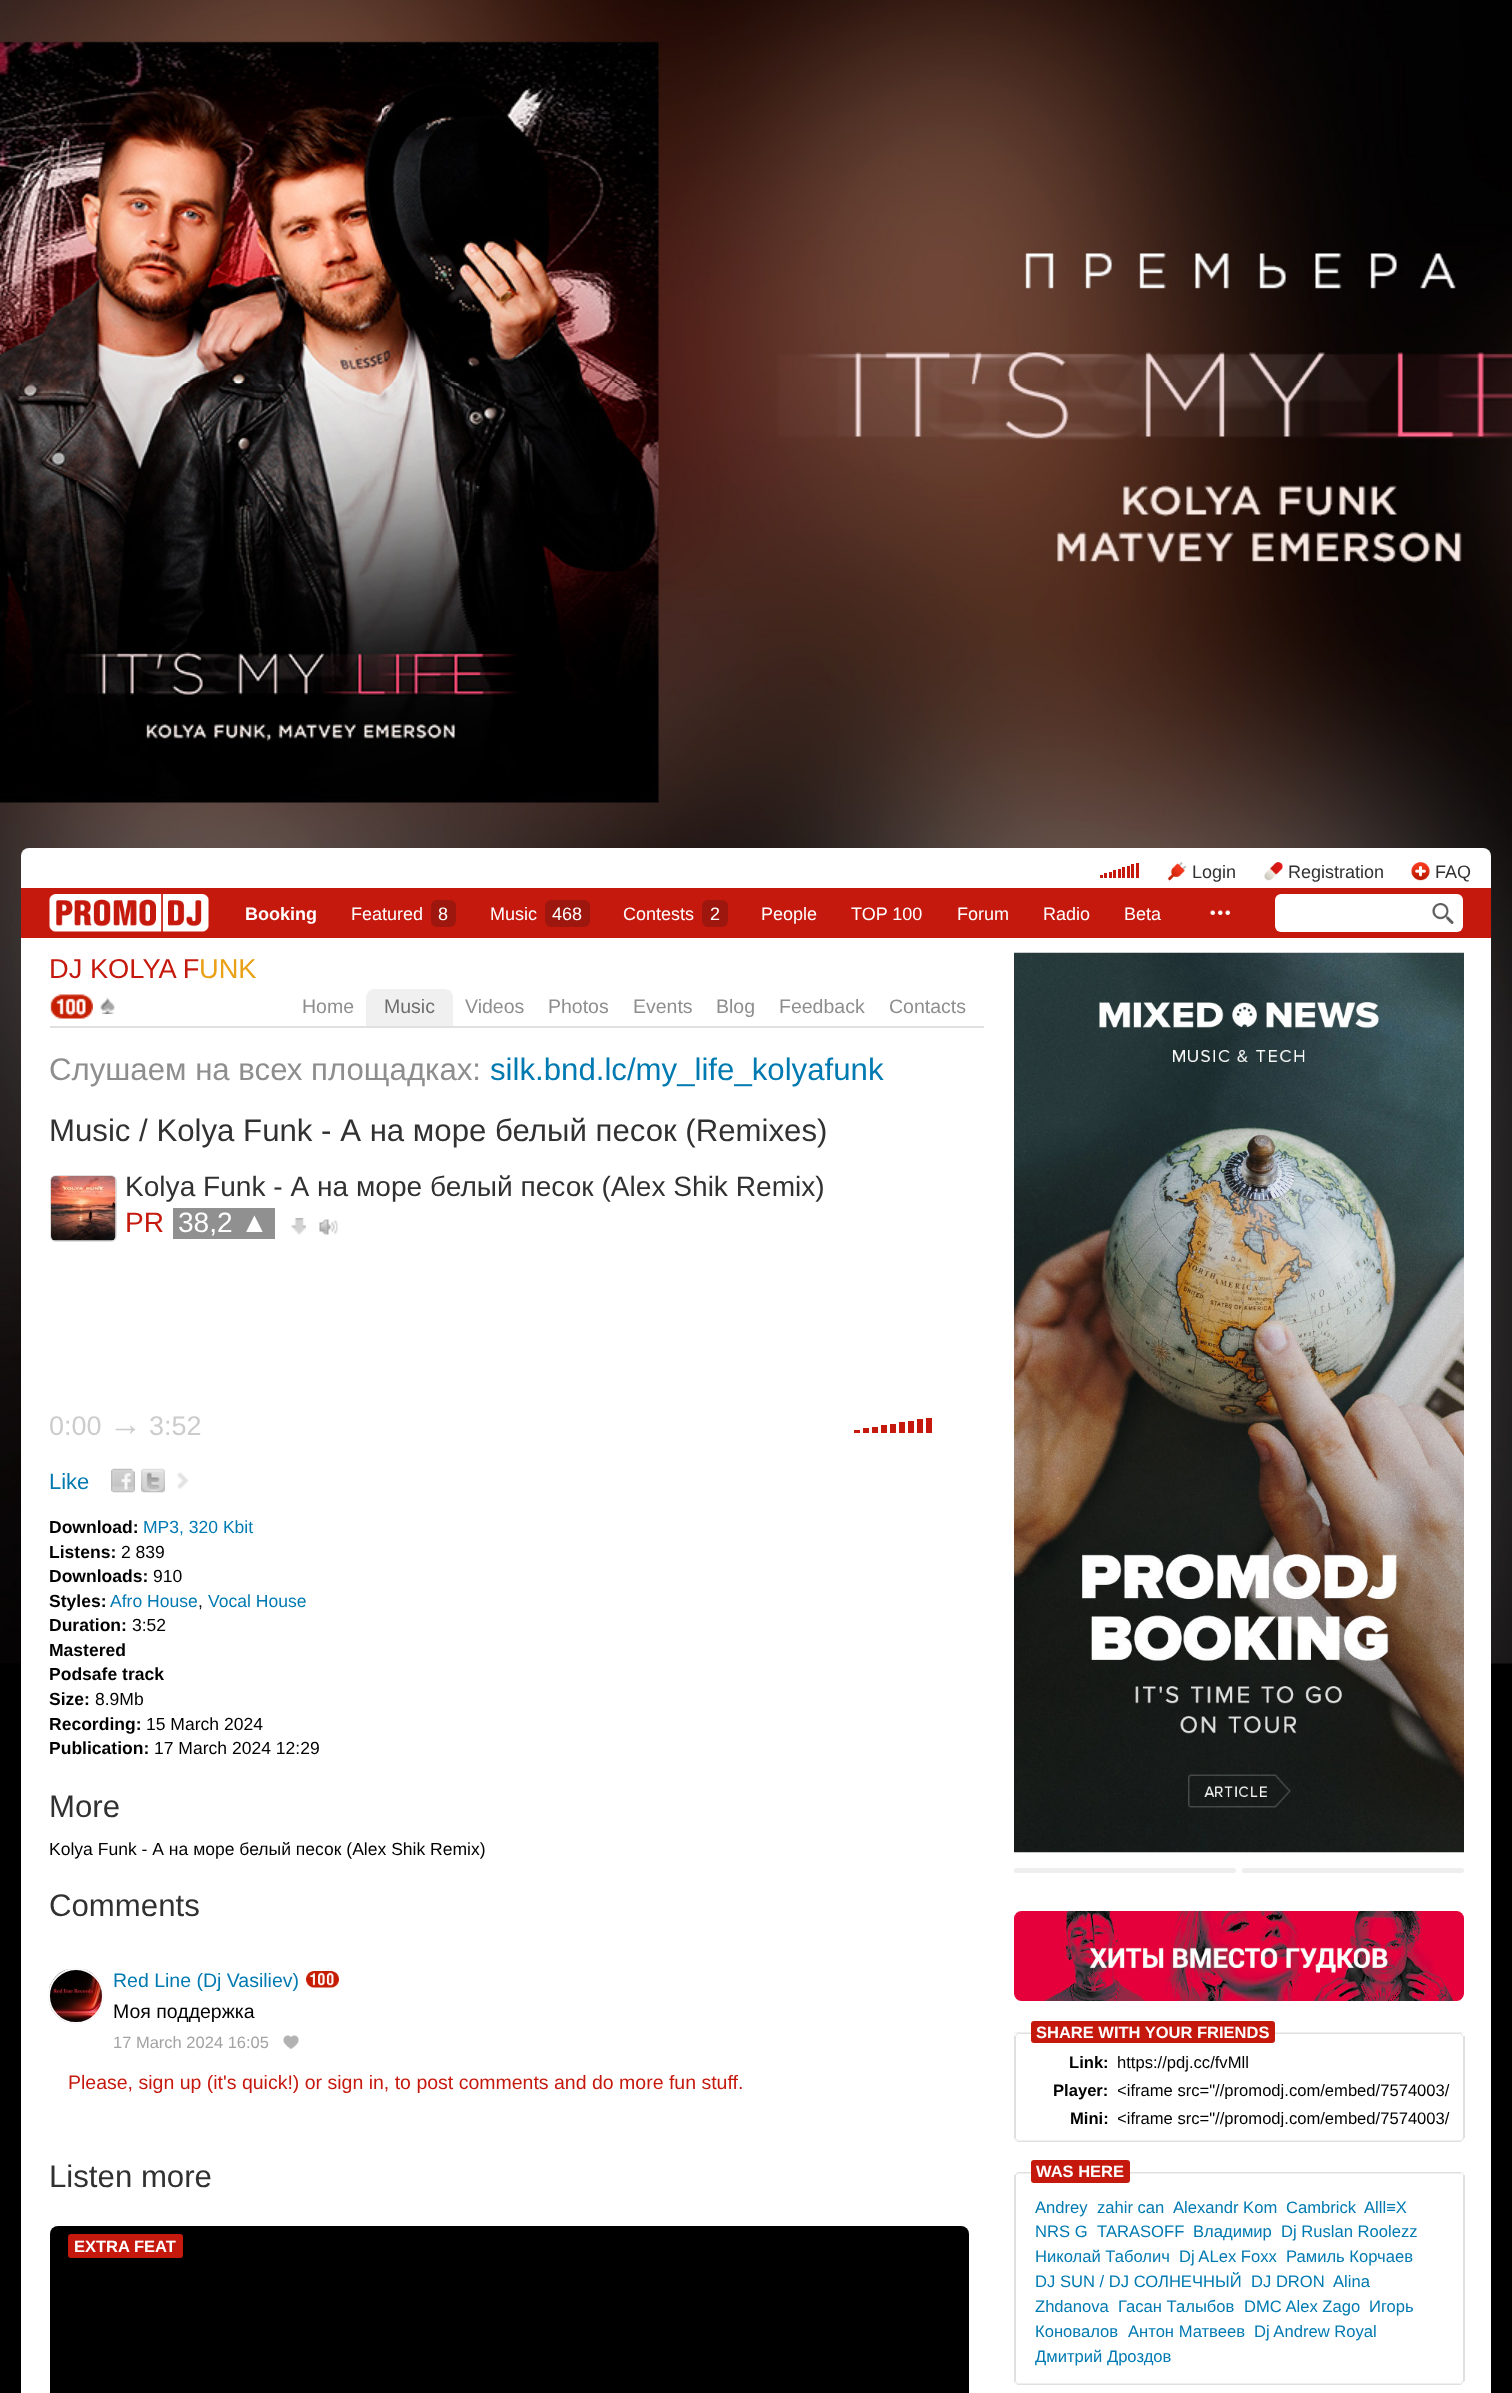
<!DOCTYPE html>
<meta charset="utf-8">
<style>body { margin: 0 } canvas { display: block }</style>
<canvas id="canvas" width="1512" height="2393"></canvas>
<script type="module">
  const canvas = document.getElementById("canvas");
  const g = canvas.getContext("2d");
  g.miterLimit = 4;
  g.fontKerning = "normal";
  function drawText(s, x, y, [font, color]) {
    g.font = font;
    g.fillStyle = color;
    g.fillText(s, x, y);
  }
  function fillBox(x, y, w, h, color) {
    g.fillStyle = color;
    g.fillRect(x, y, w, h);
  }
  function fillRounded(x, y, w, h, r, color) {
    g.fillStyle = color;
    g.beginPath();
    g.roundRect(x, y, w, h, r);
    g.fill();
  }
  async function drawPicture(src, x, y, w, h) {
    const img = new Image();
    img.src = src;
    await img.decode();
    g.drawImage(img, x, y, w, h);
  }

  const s1 = ["18px Liberation Sans", "#313131"];
  const s2 = ["bold 18px Liberation Sans", "#FFFFFF"];
  const s3 = ["18px Liberation Sans", "#FFFFFF"];
  const s4 = ["27.25px Liberation Sans", "#C6190E"];
  const s5 = ["27.25px Liberation Sans", "#E9A118"];
  const s6 = ["19.5px Liberation Sans", "#8E8E8E"];
  const s7 = ["19.5px Liberation Sans", "#6E6E6E"];
  const s8 = ["31.2px Liberation Sans", "#8E8E8E"];
  const s9 = ["31.2px Liberation Sans", "#007AB1"];
  const s10 = ["31.2px Liberation Sans", "#313131"];
  const s11 = ["28.1px Liberation Sans", "#313131"];
  const s12 = ["28.1px Liberation Sans", "#C6190E"];
  const s13 = ["28.1px Liberation Sans", "#FFFFFF"];
  const s14 = ["27px Liberation Sans", "#CCCCCC"];
  const s15 = ["33px Liberation Sans", "#CCCCCC"];
  const s16 = ["22px Liberation Sans", "#007AB1"];
  const s17 = ["bold 17.55px Liberation Sans", "#000000"];
  const s18 = ["17.55px Liberation Sans", "#007AB1"];
  const s19 = ["17.55px Liberation Sans", "#000000"];
  const s20 = ["19.5px Liberation Sans", "#007AB1"];
  const s21 = ["19.5px Liberation Sans", "#000000"];
  const s22 = ["16.5px Liberation Sans", "#A3A3A3"];
  const s23 = ["19.5px Liberation Sans", "#C6190E"];
  const s24 = ["bold 16.5px Liberation Sans", "#FFFFFF"];
  const s25 = ["bold 16.6px Liberation Sans", "#000000"];
  const s26 = ["16.6px Liberation Sans", "#000000"];
  const s27 = ["16.6px Liberation Sans", "#007AB1"];

  fillBox(0, 0, 1512, 2393, "#000000");
  await drawPicture("pic1.png", 0, 0, 1512, 1664);
  g.fillStyle = "#FFFFFF";
  g.beginPath();
  g.roundRect(21, 848, 1470, 40, [8, 8, 0, 0]);
  g.fill();
  fillBox(1100, 875, 3, 3, "#C6190E");
  fillBox(1104, 873, 3, 5, "#C6190E");
  fillBox(1109, 872, 3, 6, "#C6190E");
  fillBox(1113, 870, 3, 8, "#C6190E");
  fillBox(1118, 869, 3, 9, "#C6190E");
  fillBox(1122, 867, 3, 11, "#C6190E");
  fillBox(1127, 866, 3, 12, "#C6190E");
  fillBox(1131, 864, 3, 14, "#C6190E");
  fillBox(1136, 863, 3, 15, "#C6190E");
  await drawPicture("pic2.png", 1167, 862, 20, 19);
  drawText("Login", 1192, 878, s1);
  await drawPicture("pic3.png", 1264, 862, 19, 19);
  drawText("Registration", 1288, 878, s1);
  await drawPicture("pic4.png", 1411, 862, 19, 19);
  drawText("FAQ", 1435, 878, s1);
  fillBox(21, 888, 1470, 50, "#C6190E");
  await drawPicture("pic5.png", 49, 894, 160, 38);
  drawText("Booking", 245, 920, s2);
  drawText("Featured", 351, 920, s3);
  fillRounded(431, 900, 25, 27, 6, "#9E170E");
  drawText("8", 438, 920, s3);
  drawText("Music", 490, 920, s3);
  fillRounded(545, 900, 45, 27, 6, "#9E170E");
  drawText("468", 552, 920, s3);
  drawText("Сontests", 623, 920, s3);
  fillRounded(702, 900, 26, 27, 6, "#9E170E");
  drawText("2", 710, 920, s3);
  drawText("People", 761, 920, s3);
  drawText("TOP 100", 851, 920, s3);
  drawText("Forum", 957, 920, s3);
  drawText("Radio", 1043, 920, s3);
  drawText("Beta", 1124, 920, s3);
  await drawPicture("pic6.png", 1210, 910, 20, 5);
  fillRounded(1275, 894, 188, 38, 6, "#FFFFFF");
  await drawPicture("pic7.png", 1432, 903, 22, 21);
  fillBox(21, 938, 1470, 1455, "#FFFFFF");
  fillBox(50, 1026, 934, 2, "#E0E0E0");
  drawText("DJ KOLYA F", 49, 978, s4);
  drawText("UNK", 199, 978, s5);
  await drawPicture("pic8.png", 50, 994, 43, 25);
  await drawPicture("pic9.png", 100, 997, 15, 17);
  drawText("Home", 302, 1013, s6);
  fillBox(366, 989, 87, 37, "#F0F0F0");
  await drawPicture("pic10.png", 366, 989, 6, 6);
  await drawPicture("pic11.png", 447, 989, 6, 6);
  drawText("Music", 384, 1013, s7);
  drawText("Videos", 465, 1013, s6);
  drawText("Photos", 548, 1013, s6);
  drawText("Events", 633, 1013, s6);
  drawText("Blog", 716, 1013, s6);
  drawText("Feedback", 779, 1013, s6);
  drawText("Contacts", 889, 1013, s6);
  drawText("Слушаем на всех площадках:", 49, 1080, s8);
  drawText("silk.bnd.lc/my_life_kolyafunk", 490, 1080, s9);
  drawText("Music / Kolya Funk - А на море белый песок (Remixes)", 49, 1141, s10);
  g.beginPath();
  g.roundRect(51, 1176, 65, 65, 5);
  g.strokeStyle = "#E0E0E0";
  g.lineWidth = 2;
  g.stroke();
  await drawPicture("pic12.png", 51, 1176, 65, 65);
  drawText("Kolya Funk - А на море белый песок (Alex Shik Remix)", 125, 1196, s11);
  drawText("PR", 125, 1232, s12);
  fillBox(173, 1208, 102, 31, "#909090");
  drawText("38,2 ▲", 178, 1232, s13);
  await drawPicture("pic13.png", 291, 1218, 15, 17);
  await drawPicture("pic14.png", 319, 1219, 19, 16);
  drawText("0:00", 49, 1435, s14);
  drawText("→", 109, 1435, s15);
  drawText("3:52", 149, 1435, s14);
  fillBox(854, 1430, 6, 3, "#C6190E");
  fillBox(863, 1428, 6, 5, "#C6190E");
  fillBox(872, 1427, 6, 6, "#C6190E");
  fillBox(881, 1425, 6, 8, "#C6190E");
  fillBox(890, 1424, 6, 9, "#C6190E");
  fillBox(899, 1422, 6, 11, "#C6190E");
  fillBox(908, 1421, 6, 12, "#C6190E");
  fillBox(917, 1419, 6, 14, "#C6190E");
  fillBox(926, 1418, 6, 15, "#C6190E");
  drawText("Like", 49, 1489, s16);
  await drawPicture("pic15.png", 111, 1468, 24, 25);
  await drawPicture("pic16.png", 141, 1468, 24, 25);
  await drawPicture("pic17.png", 177, 1472, 12, 17);
  drawText("Download:", 49, 1533, s17);
  drawText("MP3, 320 Kbit", 143, 1533, s18);
  drawText("Listens:", 49, 1558, s17);
  drawText("2 839", 121, 1558, s19);
  drawText("Downloads:", 49, 1582, s17);
  drawText("910", 153, 1582, s19);
  drawText("Styles:", 49, 1607, s17);
  drawText("Afro House", 110, 1607, s18);
  drawText(",", 198, 1607, s19);
  drawText("Vocal House", 208, 1607, s18);
  drawText("Duration:", 49, 1631, s17);
  drawText("3:52", 132, 1631, s19);
  drawText("Mastered", 49, 1656, s17);
  drawText("Podsafe track", 49, 1680, s17);
  drawText("Size:", 49, 1705, s17);
  drawText("8.9Mb", 95, 1705, s19);
  drawText("Recording:", 49, 1730, s17);
  drawText("15 March 2024", 146, 1730, s19);
  drawText("Publication:", 49, 1754, s17);
  drawText("17 March 2024 12:29", 154, 1754, s19);
  drawText("More", 49, 1817, s10);
  drawText("Kolya Funk - А на море белый песок (Alex Shik Remix)", 49, 1855, s19);
  drawText("Comments", 49, 1916, s10);
  await drawPicture("pic18.png", 49, 1969, 53, 53);
  g.beginPath();
  g.arc(76, 1996, 27, 0, Math.PI * 2);
  g.strokeStyle = "#F9F9F9";
  g.stroke();
  drawText("Red Line (Dj Vasiliev)", 113, 1987, s20);
  await drawPicture("pic19.png", 306, 1971, 33, 17);
  drawText("Моя поддержка", 113, 2018, s21);
  drawText("17 March 2024 16:05", 113, 2048, s22);
  await drawPicture("pic20.png", 283, 2035, 16, 14);
  drawText("Please, sign up (it's quick!) or sign in, to post comments and do more fun stuff.", 68, 2089, s23);
  drawText("Listen more", 49, 2187, s10);
  fillRounded(50, 2226, 919, 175, 8, "#000000");
  fillRounded(68, 2234, 115, 24, 3, "#C6190E");
  drawText("EXTRA FEAT", 74, 2252, s24);
  await drawPicture("pic21.png", 1014, 952, 450, 901);
  fillRounded(1014, 1868, 222, 5, 2.5, "#EEEEEE");
  fillRounded(1242, 1868, 222, 5, 2.5, "#EEEEEE");
  await drawPicture("pic22.png", 1014, 1911, 450, 90);
  await drawPicture("pic28.png", 1461, 2137, 3, 5);
  fillBox(1463, 2036, 2, 102, "#E0E0E0");
  await drawPicture("pic27.png", 1014, 2137, 4, 5);
  fillBox(1014, 2036, 2, 102, "#E0E0E0");
  await drawPicture("pic23.png", 1014, 2032, 450, 2);
  fillRounded(1031, 2021, 244, 22, 3, "#C6190E");
  drawText("SHARE WITH YOUR FRIENDS", 1036, 2038, s24);
  drawText("Link:", 1069, 2068, s25);
  drawText("https://pdj.cc/fvMll", 1117, 2068, s26);
  drawText("Player:", 1053, 2096, s25);
  g.save();
  g.beginPath();
  g.rect(1118, 2081, 333, 18);
  g.clip();
  drawText("<iframe src=\"//promodj.com/embed/7574003/", 1117, 2096, s26);
  g.restore();
  drawText("Mini:", 1070, 2124, s25);
  g.save();
  g.beginPath();
  g.rect(1118, 2109, 333, 18);
  g.clip();
  drawText("<iframe src=\"//promodj.com/embed/7574003/", 1117, 2124, s26);
  g.restore();
  await drawPicture("pic24.png", 1014, 2032, 4, 4);
  await drawPicture("pic25.png", 1460, 2032, 4, 4);
  await drawPicture("pic26.png", 1018, 2140, 443, 2);
  await drawPicture("pic28.png", 1461, 2380, 3, 5);
  fillBox(1463, 2175, 2, 206, "#E0E0E0");
  await drawPicture("pic27.png", 1014, 2380, 4, 5);
  fillBox(1014, 2175, 2, 206, "#E0E0E0");
  await drawPicture("pic29.png", 1018, 2172, 443, 2);
  fillRounded(1031, 2160, 99, 23, 3, "#C6190E");
  drawText("WAS HERE", 1036, 2177, s24);
  drawText("Andrey", 1035, 2213, s27);
  drawText("zahir can", 1097, 2213, s27);
  drawText("Alexandr Kom", 1173, 2213, s27);
  drawText("Cambrick", 1286, 2213, s27);
  drawText("Alll≡X", 1364, 2213, s27);
  drawText("NRS G", 1035, 2237, s27);
  drawText("TARASOFF", 1097, 2237, s27);
  drawText("Владимир", 1193, 2237, s27);
  drawText("Dj Ruslan Roolezz", 1281, 2237, s27);
  drawText("Николай Таболич", 1035, 2262, s27);
  drawText("Dj ALex Foxx", 1179, 2262, s27);
  drawText("Рамиль Корчаев", 1286, 2262, s27);
  drawText("DJ SUN / DJ СОЛНЕЧНЫЙ", 1035, 2287, s27);
  drawText("DJ DRON", 1251, 2287, s27);
  drawText("Alina", 1333, 2287, s27);
  drawText("Zhdanova", 1035, 2312, s27);
  drawText("Гасан Талыбов", 1118, 2312, s27);
  drawText("DMC Alex Zago", 1244, 2312, s27);
  drawText("Игорь", 1369, 2312, s27);
  drawText("Коновалов", 1035, 2337, s27);
  drawText("Антон Матвеев", 1128, 2337, s27);
  drawText("Dj Andrew Royal", 1254, 2337, s27);
  drawText("Дмитрий Дроздов", 1035, 2362, s27);
  await drawPicture("pic30.png", 1014, 2172, 4, 3);
  fillBox(1461, 2172, 3, 3, "#F6F6F6");
  await drawPicture("pic26.png", 1018, 2383, 443, 2);
</script>
